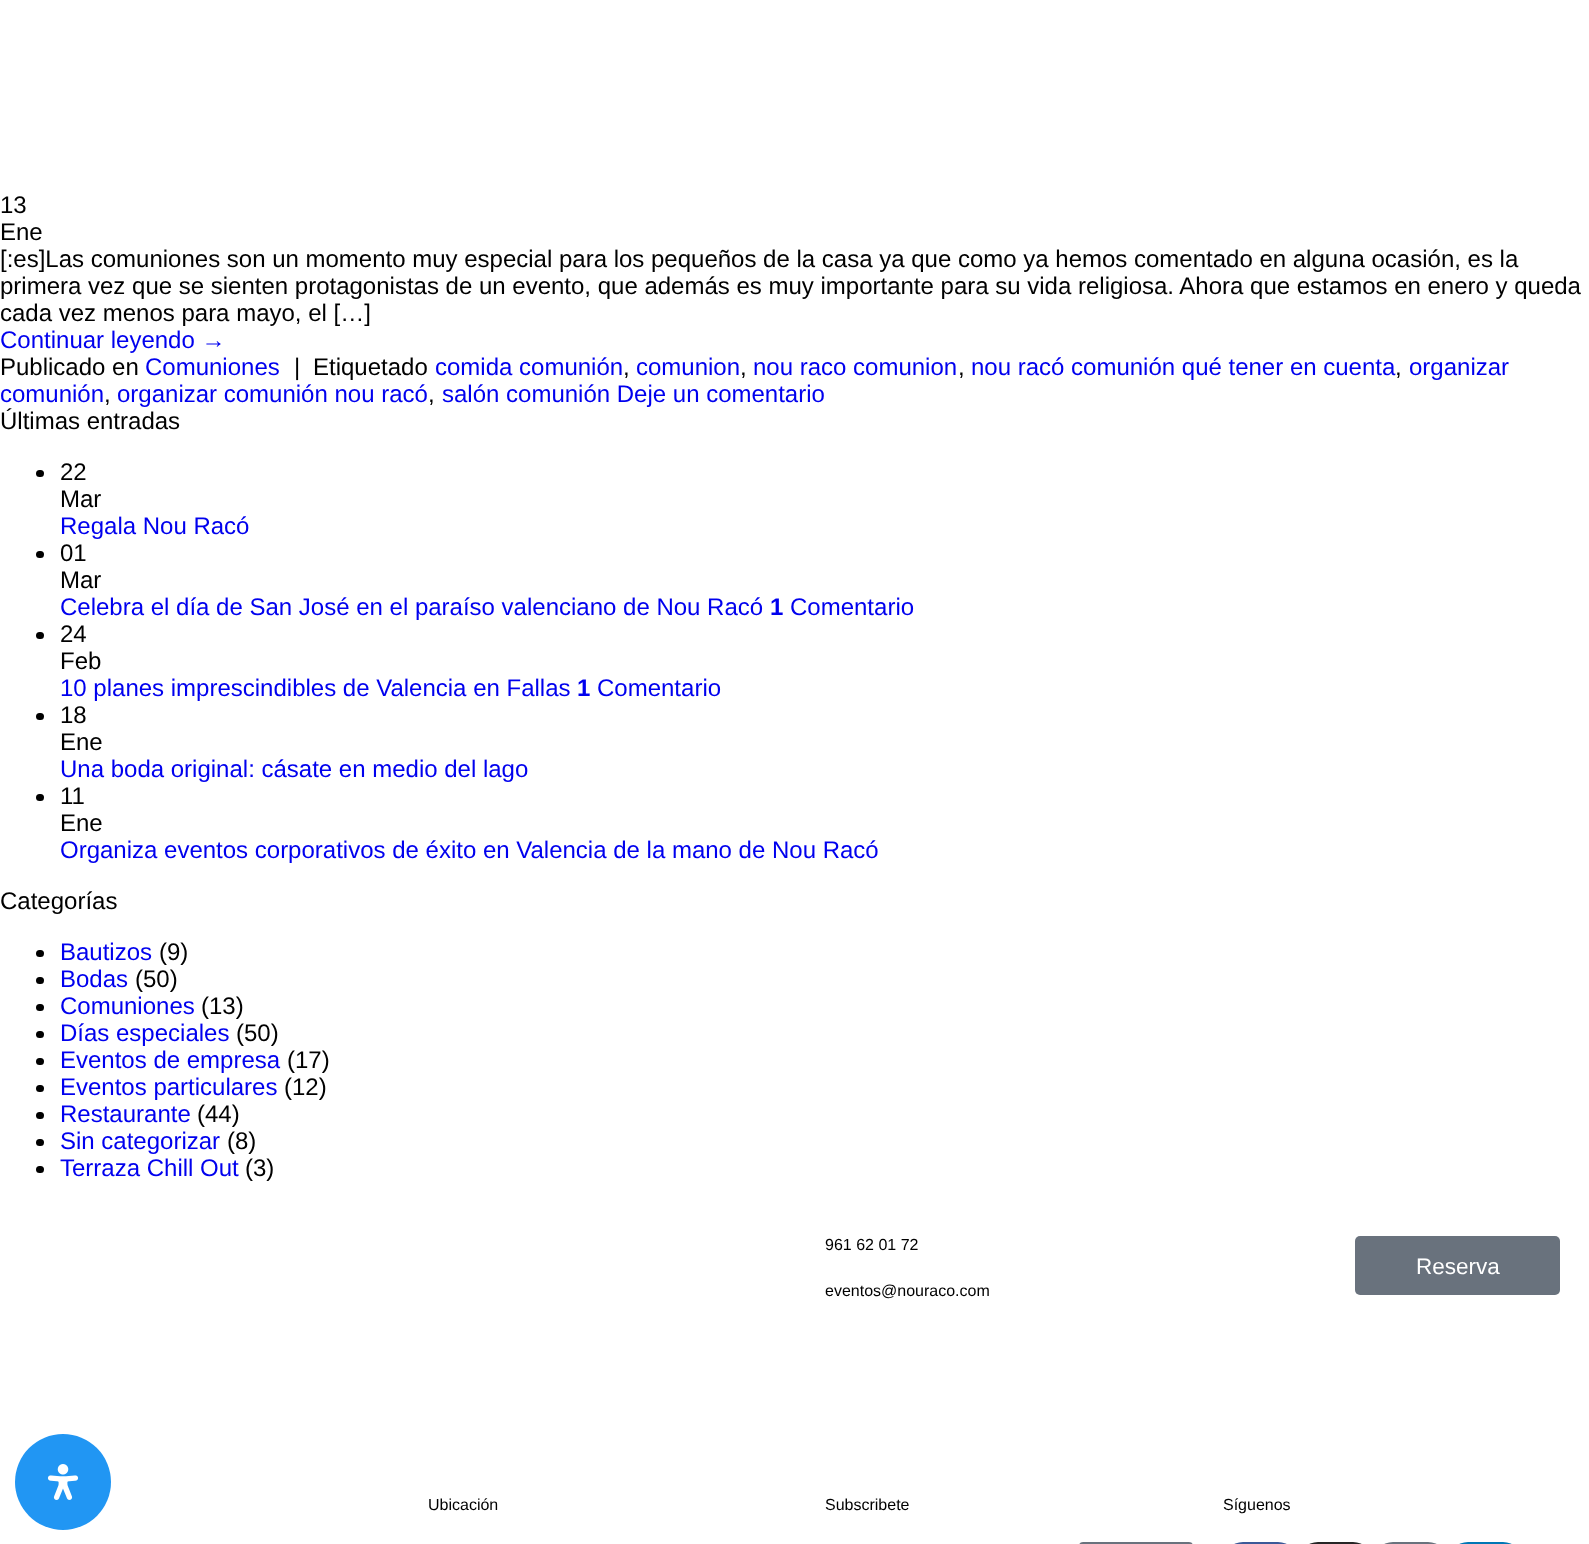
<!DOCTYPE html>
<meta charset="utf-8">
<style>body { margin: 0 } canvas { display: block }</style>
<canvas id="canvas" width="1589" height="1544"></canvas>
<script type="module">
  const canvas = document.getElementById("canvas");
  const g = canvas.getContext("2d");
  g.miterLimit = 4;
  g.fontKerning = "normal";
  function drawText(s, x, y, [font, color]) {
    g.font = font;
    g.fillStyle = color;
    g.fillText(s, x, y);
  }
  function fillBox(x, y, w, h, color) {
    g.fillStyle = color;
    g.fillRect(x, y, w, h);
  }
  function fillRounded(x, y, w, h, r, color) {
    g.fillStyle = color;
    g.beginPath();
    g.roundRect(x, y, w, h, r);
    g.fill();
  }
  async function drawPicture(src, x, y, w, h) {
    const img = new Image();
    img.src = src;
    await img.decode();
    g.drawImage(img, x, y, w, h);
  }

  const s1 = ["24px Liberation Sans", "#000000"];
  const s2 = ["24px Liberation Sans", "#0000EE"];
  const s3 = ["bold 24px Liberation Sans", "#0000EE"];
  const s4 = ["16px Liberation Sans", "#000000"];
  const s5 = ["22.5px Liberation Sans", "#FFFFFF"];

  fillBox(0, 0, 1589, 1544, "#FFFFFF");
  drawText("13", 0, 213, s1);
  drawText("Ene", 0, 240, s1);
  drawText("[:es]Las comuniones son un momento muy especial para los pequeños de la casa ya que como ya hemos comentado en alguna ocasión, es la", 0, 267, s1);
  drawText("primera vez que se sienten protagonistas de un evento, que además es muy importante para su vida religiosa. Ahora que estamos en enero y queda", 0, 294, s1);
  drawText("cada vez menos para mayo, el […]", 0, 321, s1);
  drawText("Continuar leyendo →", 0, 348, s2);
  drawText("Publicado en", 0, 375, s1);
  drawText("Comuniones", 145, 375, s2);
  drawText("|", 294, 375, s1);
  drawText("Etiquetado", 313, 375, s1);
  drawText("comida comunión", 435, 375, s2);
  drawText(",", 623, 375, s1);
  drawText("comunion", 636, 375, s2);
  drawText(",", 740, 375, s1);
  drawText("nou raco comunion", 753, 375, s2);
  drawText(",", 958, 375, s1);
  drawText("nou racó comunión qué tener en cuenta", 971, 375, s2);
  drawText(",", 1395, 375, s1);
  drawText("organizar", 1409, 375, s2);
  drawText("comunión", 0, 402, s2);
  drawText(",", 104, 402, s1);
  drawText("organizar comunión nou racó", 117, 402, s2);
  drawText(",", 428, 402, s1);
  drawText("salón comunión Deje un comentario", 442, 402, s2);
  drawText("Últimas entradas", 0, 429, s1);
  fillRounded(36, 470, 8, 7, 3.5, "#000000");
  drawText("22", 60, 480, s1);
  drawText("Mar", 60, 507, s1);
  drawText("Regala Nou Racó", 60, 534, s2);
  fillRounded(36, 551, 8, 7, 3.5, "#000000");
  drawText("01", 60, 561, s1);
  drawText("Mar", 60, 588, s1);
  drawText("Celebra el día de San José en el paraíso valenciano de Nou Racó", 60, 615, s2);
  drawText("1", 770, 615, s3);
  drawText("Comentario", 790, 615, s2);
  fillRounded(36, 632, 8, 7, 3.5, "#000000");
  drawText("24", 60, 642, s1);
  drawText("Feb", 60, 669, s1);
  drawText("10 planes imprescindibles de Valencia en Fallas", 60, 696, s2);
  drawText("1", 577, 696, s3);
  drawText("Comentario", 597, 696, s2);
  fillRounded(36, 713, 8, 7, 3.5, "#000000");
  drawText("18", 60, 723, s1);
  drawText("Ene", 60, 750, s1);
  drawText("Una boda original: cásate en medio del lago", 60, 777, s2);
  fillRounded(36, 794, 8, 7, 3.5, "#000000");
  drawText("11", 60, 804, s1);
  drawText("Ene", 60, 831, s1);
  drawText("Organiza eventos corporativos de éxito en Valencia de la mano de Nou Racó", 60, 858, s2);
  drawText("Categorías", 0, 909, s1);
  fillRounded(36, 950, 8, 7, 3.5, "#000000");
  drawText("Bautizos", 60, 960, s2);
  drawText("(9)", 159, 960, s1);
  fillRounded(36, 977, 8, 7, 3.5, "#000000");
  drawText("Bodas", 60, 987, s2);
  drawText("(50)", 135, 987, s1);
  fillRounded(36, 1004, 8, 7, 3.5, "#000000");
  drawText("Comuniones", 60, 1014, s2);
  drawText("(13)", 201, 1014, s1);
  fillRounded(36, 1031, 8, 7, 3.5, "#000000");
  drawText("Días especiales", 60, 1041, s2);
  drawText("(50)", 236, 1041, s1);
  fillRounded(36, 1058, 8, 7, 3.5, "#000000");
  drawText("Eventos de empresa", 60, 1068, s2);
  drawText("(17)", 287, 1068, s1);
  fillRounded(36, 1085, 8, 7, 3.5, "#000000");
  drawText("Eventos particulares", 60, 1095, s2);
  drawText("(12)", 284, 1095, s1);
  fillRounded(36, 1112, 8, 7, 3.5, "#000000");
  drawText("Restaurante", 60, 1122, s2);
  drawText("(44)", 197, 1122, s1);
  fillRounded(36, 1139, 8, 7, 3.5, "#000000");
  drawText("Sin categorizar", 60, 1149, s2);
  drawText("(8)", 227, 1149, s1);
  fillRounded(36, 1166, 8, 7, 3.5, "#000000");
  drawText("Terraza Chill Out", 60, 1176, s2);
  drawText("(3)", 245, 1176, s1);
  g.fillStyle = "#2196F3";
  g.beginPath();
  g.arc(63, 1482, 48, 0, Math.PI * 2);
  g.fill();
  await drawPicture("pic1.png", 47, 1464, 32, 36);
  drawText("961 62 01 72", 825, 1250, s4);
  drawText("eventos@nouraco.com", 825, 1296, s4);
  fillRounded(1355, 1236, 205, 59, 5, "#69727D");
  drawText("Reserva", 1416, 1274, s5);
  drawText("Ubicación", 428, 1510, s4);
  drawText("Subscribete", 825, 1510, s4);
  fillRounded(1079, 1542, 114, 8, 6, "#69727D");
  drawText("Síguenos", 1223, 1510, s4);
  fillRounded(1223, 1542, 75, 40, 37.5, "#3B5998");
  fillRounded(1298, 1542, 75, 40, 37.5, "#262626");
  fillRounded(1373, 1542, 75, 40, 37.5, "#69727D");
  fillRounded(1448, 1542, 75, 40, 37.5, "#0077B5");
</script>
